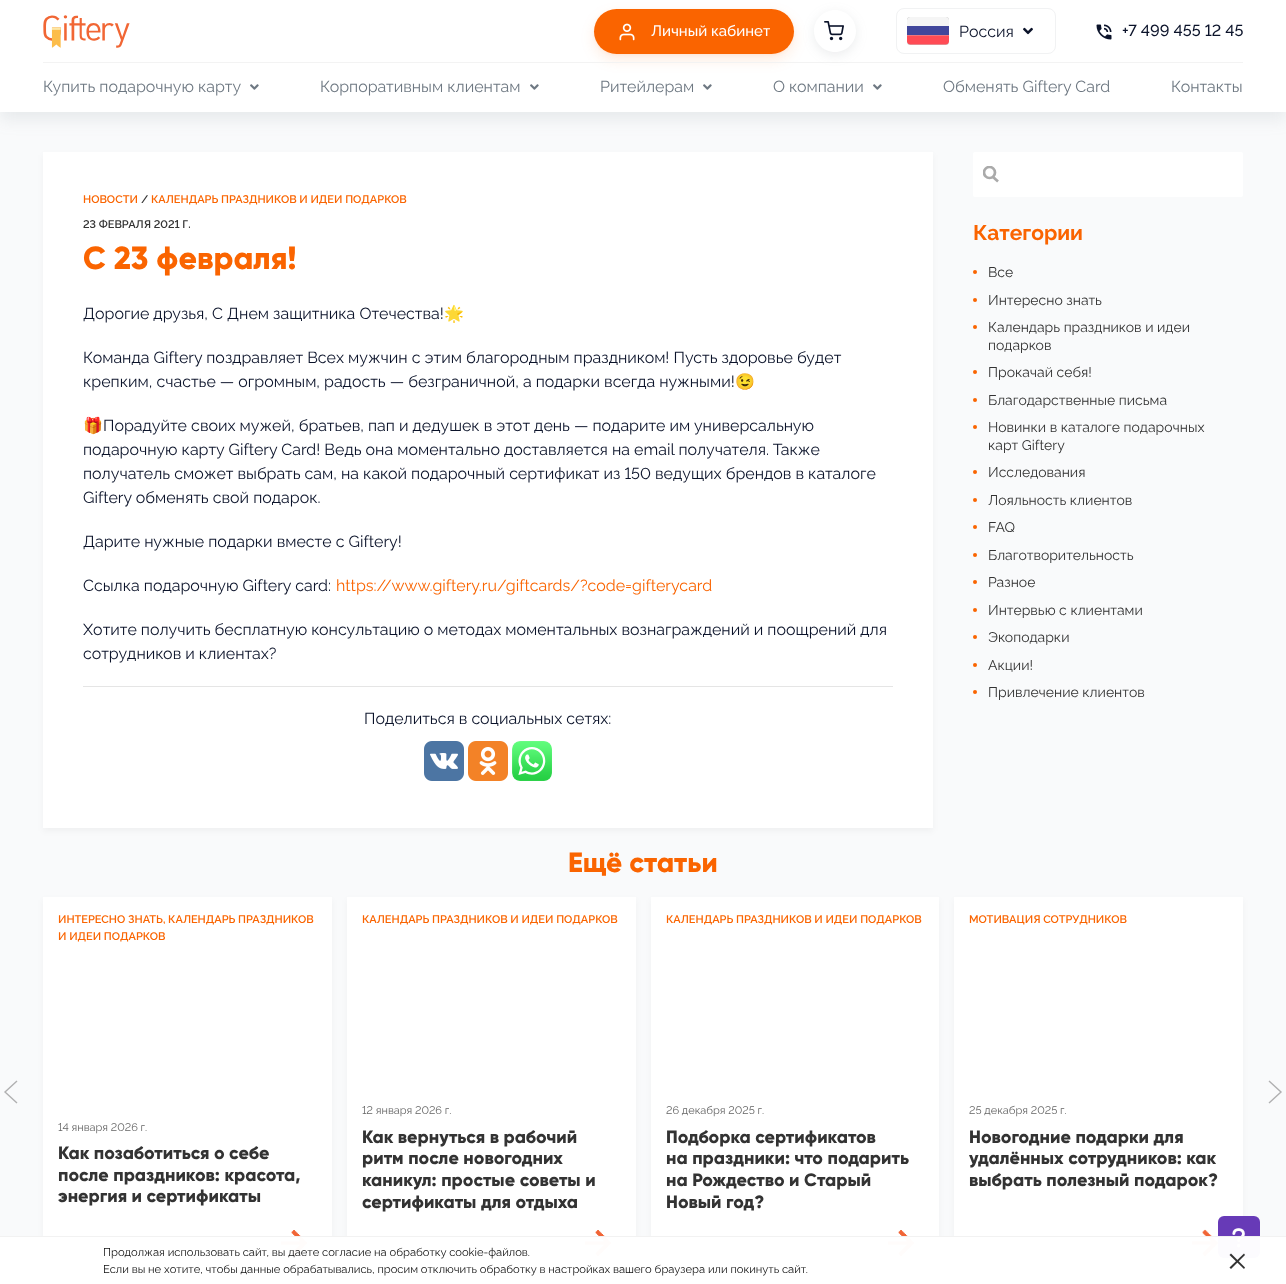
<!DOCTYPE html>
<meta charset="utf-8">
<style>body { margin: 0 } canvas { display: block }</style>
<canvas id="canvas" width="1286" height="1284"></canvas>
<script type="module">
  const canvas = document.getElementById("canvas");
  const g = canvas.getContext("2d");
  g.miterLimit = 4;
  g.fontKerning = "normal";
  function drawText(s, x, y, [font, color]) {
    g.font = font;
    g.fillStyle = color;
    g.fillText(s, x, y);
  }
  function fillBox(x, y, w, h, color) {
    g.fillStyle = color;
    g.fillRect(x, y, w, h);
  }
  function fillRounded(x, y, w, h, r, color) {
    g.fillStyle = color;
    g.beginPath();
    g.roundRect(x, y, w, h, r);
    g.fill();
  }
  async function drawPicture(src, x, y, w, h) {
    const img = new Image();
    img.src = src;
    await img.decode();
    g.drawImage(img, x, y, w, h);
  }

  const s1 = ["500 15px Raleway", "#FFFFFF"];
  const s2 = ["16px Raleway", "#0B132A"];
  const s3 = ["500 16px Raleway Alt", "#0B132A"];
  const s4 = ["16px Raleway", "#6E7882"];
  const s5 = ["600 11px Raleway", "#FA6400"];
  const s6 = ["600 11px Raleway", "#333333"];
  const s7 = ["600 11px Raleway Alt", "#333333"];
  const s8 = ["800 32px Gilroy", "#FA6400"];
  const s9 = ["16px Noto Color Emoji", "#0B132A"];
  const s10 = ["16px Raleway Alt", "#0B132A"];
  const s11 = ["16px Raleway", "#FA6400"];
  const s12 = ["bold 21px Raleway", "#FA6400"];
  const s13 = ["14px Raleway", "#333333"];
  const s14 = ["800 28px Gilroy", "#FA6400"];
  const s15 = ["11px Raleway Alt", "#666666"];
  const s16 = ["800 18px Gilroy", "#333333"];
  const s17 = ["11.2px Raleway", "#111111"];

  fillBox(0, 0, 1286, 1284, "#F9FAFB");
  g.fillStyle = "rgba(110, 120, 129, 0.12)";
  g.filter = "blur(8px)";
  g.beginPath();
  g.rect(0, 8, 1286, 112);
  g.fill();
  g.filter = "none";
  fillBox(0, 0, 1286, 112, "#FFFFFF");
  await drawPicture("pic1.png", 43, 15, 87, 33);
  g.fillStyle = "rgba(250, 100, 0, 0.12)";
  g.filter = "blur(7px)";
  g.beginPath();
  g.roundRect(594, 15, 200, 45, 22.5);
  g.fill();
  g.filter = "none";
  g.fillStyle = "rgba(250, 100, 0, 0.08)";
  g.filter = "blur(1.5px)";
  g.beginPath();
  g.roundRect(594, 10, 200, 45, 22.5);
  g.fill();
  g.filter = "none";
  fillRounded(594, 9, 200, 45, 22.5, "#FA6400");
  await drawPicture("pic2.png", 619, 23, 16, 18);
  drawText("Личный кабинет", 651, 36, s1);
  fillBox(43, 62, 1200, 1, "#F3F3F3");
  g.save();
  g.beginPath();
  g.moveTo(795, 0);
  g.lineTo(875, 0);
  g.lineTo(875, 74);
  g.lineTo(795, 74);
  g.closePath();
  g.moveTo(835, 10);
  g.bezierCurveTo(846.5, 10, 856, 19.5, 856, 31);
  g.bezierCurveTo(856, 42.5, 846.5, 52, 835, 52);
  g.bezierCurveTo(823.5, 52, 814, 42.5, 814, 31);
  g.bezierCurveTo(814, 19.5, 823.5, 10, 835, 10);
  g.closePath();
  g.clip("evenodd");
  g.fillStyle = "rgba(110, 120, 129, 0.14)";
  g.filter = "blur(6px)";
  g.beginPath();
  g.roundRect(814, 13, 42, 42, 21);
  g.fill();
  g.filter = "none";
  g.restore();
  await drawPicture("pic3.png", 824, 21, 20, 20);
  g.beginPath();
  g.roundRect(896.5, 8.5, 159, 45, 7.5);
  g.strokeStyle = "#F1F2F3";
  g.stroke();
  g.fillStyle = "rgba(0, 0, 0, 0.2)";
  g.filter = "blur(0.5px)";
  g.beginPath();
  g.roundRect(907, 17, 42, 28, 3);
  g.fill();
  g.filter = "none";
  await drawPicture("pic4.png", 907, 17, 42, 28);
  drawText("Россия", 959, 37, s2);
  await drawPicture("pic5.png", 1023, 27, 10, 8);
  await drawPicture("pic6.png", 1096, 24, 16, 16);
  drawText("+7 499 455 12 45", 1122, 36, s3);
  drawText("Купить подарочную карту", 43, 92, s4);
  await drawPicture("pic7.png", 250, 84, 9, 6);
  drawText("Корпоративным клиентам", 320, 92, s4);
  await drawPicture("pic7.png", 530, 84, 9, 6);
  drawText("Ритейлерам", 600, 92, s4);
  await drawPicture("pic7.png", 703, 84, 9, 6);
  drawText("О компании", 773, 92, s4);
  await drawPicture("pic7.png", 873, 84, 9, 6);
  drawText("Обменять Giftery Card", 943, 92, s4);
  drawText("Контакты", 1171, 92, s4);
  g.fillStyle = "rgba(0, 0, 0, 0.04)";
  g.filter = "blur(3px)";
  g.beginPath();
  g.rect(43, 155, 890, 676);
  g.fill();
  g.filter = "none";
  fillBox(43, 152, 890, 676, "#FFFFFF");
  drawText("НОВОСТИ", 83, 203, s5);
  drawText("/", 141, 203, s6);
  drawText("КАЛЕНДАРЬ ПРАЗДНИКОВ И ИДЕИ ПОДАРКОВ", 151, 203, s5);
  drawText("23 ФЕВРАЛЯ 2021 Г.", 83, 228, s7);
  drawText("С 23 февраля!", 83, 269, s8);
  drawText("Дорогие друзья, С Днем защитника Отечества!", 83, 319, s2);
  drawText("🌟", 444, 319, s9);
  drawText("Команда Giftery поздравляет Всех мужчин с этим благородным праздником! Пусть здоровье будет", 83, 363, s2);
  drawText("крепким, счастье — огромным, радость — безграничной, а подарки всегда нужными!", 83, 387, s2);
  drawText("😉", 735, 387, s9);
  drawText("🎁", 83, 431, s9);
  drawText("Порадуйте своих мужей, братьев, пап и дедушек в этот день — подарите им универсальную", 103, 431, s2);
  drawText("подарочную карту Giftery Card! Ведь она моментально доставляется на email получателя. Также", 83, 455, s2);
  drawText("получатель сможет выбрать сам, на какой подарочный сертификат из 150 ведущих брендов в каталоге", 83, 479, s10);
  drawText("Giftery обменять свой подарок.", 83, 503, s2);
  drawText("Дарите нужные подарки вместе с Giftery!", 83, 547, s2);
  drawText("Ссылка подарочную Giftery card:", 83, 591, s2);
  drawText("https://www.giftery.ru/giftcards/?code=gifterycard", 336, 591, s11);
  drawText("Хотите получить бесплатную консультацию о методах моментальных вознаграждений и поощрений для", 83, 635, s2);
  drawText("сотрудников и клиентах?", 83, 659, s2);
  fillBox(83, 686, 810, 1, "#E5E5E5");
  drawText("Поделиться в социальных сетях:", 364, 724, s2);
  await drawPicture("pic8.png", 424, 741, 40, 40);
  await drawPicture("pic9.png", 468, 741, 40, 40);
  await drawPicture("pic10.png", 512, 741, 40, 40);
  fillRounded(973, 152, 270, 45, 2, "#FFFFFF");
  g.beginPath();
  g.moveTo(998, 181.5);
  g.lineTo(992.5, 176.5);
  g.strokeStyle = "#AAAAAA";
  g.lineWidth = 2.7;
  g.stroke();
  g.save();
  g.beginPath();
  g.rect(983, 166, 16, 17);
  g.clip();
  g.beginPath();
  g.arc(989.5, 172.5, 5.5, 0, Math.PI * 2);
  g.stroke();
  g.restore();
  drawText("Категории", 973, 240, s12);
  g.beginPath();
  g.arc(975, 272, 2, 0, Math.PI * 2);
  g.fill();
  drawText("Все", 988, 277, s13);
  g.fillStyle = "#FA6400";
  g.beginPath();
  g.arc(975, 300, 2, 0, Math.PI * 2);
  g.fill();
  drawText("Интересно знать", 988, 305, s13);
  g.fillStyle = "#FA6400";
  g.beginPath();
  g.arc(975, 327, 2, 0, Math.PI * 2);
  g.fill();
  drawText("Календарь праздников и идеи", 988, 332, s13);
  drawText("подарков", 988, 350, s13);
  g.fillStyle = "#FA6400";
  g.beginPath();
  g.arc(975, 372, 2, 0, Math.PI * 2);
  g.fill();
  drawText("Прокачай себя!", 988, 377, s13);
  g.fillStyle = "#FA6400";
  g.beginPath();
  g.arc(975, 400, 2, 0, Math.PI * 2);
  g.fill();
  drawText("Благодарственные письма", 988, 405, s13);
  g.fillStyle = "#FA6400";
  g.beginPath();
  g.arc(975, 427, 2, 0, Math.PI * 2);
  g.fill();
  drawText("Новинки в каталоге подарочных", 988, 432, s13);
  drawText("карт Giftery", 988, 450, s13);
  g.fillStyle = "#FA6400";
  g.beginPath();
  g.arc(975, 472, 2, 0, Math.PI * 2);
  g.fill();
  drawText("Исследования", 988, 477, s13);
  g.fillStyle = "#FA6400";
  g.beginPath();
  g.arc(975, 500, 2, 0, Math.PI * 2);
  g.fill();
  drawText("Лояльность клиентов", 988, 505, s13);
  g.fillStyle = "#FA6400";
  g.beginPath();
  g.arc(975, 527, 2, 0, Math.PI * 2);
  g.fill();
  drawText("FAQ", 988, 532, s13);
  g.fillStyle = "#FA6400";
  g.beginPath();
  g.arc(975, 555, 2, 0, Math.PI * 2);
  g.fill();
  drawText("Благотворительность", 988, 560, s13);
  g.fillStyle = "#FA6400";
  g.beginPath();
  g.arc(975, 582, 2, 0, Math.PI * 2);
  g.fill();
  drawText("Разное", 988, 587, s13);
  g.fillStyle = "#FA6400";
  g.beginPath();
  g.arc(975, 610, 2, 0, Math.PI * 2);
  g.fill();
  drawText("Интервью с клиентами", 988, 615, s13);
  g.fillStyle = "#FA6400";
  g.beginPath();
  g.arc(975, 637, 2, 0, Math.PI * 2);
  g.fill();
  drawText("Экоподарки", 988, 642, s13);
  g.fillStyle = "#FA6400";
  g.beginPath();
  g.arc(975, 665, 2, 0, Math.PI * 2);
  g.fill();
  drawText("Акции!", 988, 670, s13);
  g.fillStyle = "#FA6400";
  g.beginPath();
  g.arc(975, 692, 2, 0, Math.PI * 2);
  g.fill();
  drawText("Привлечение клиентов", 988, 697, s13);
  drawText("Ещё статьи", 568, 872, s14);
  g.fillStyle = "rgba(0, 0, 0, 0.04)";
  g.filter = "blur(3px)";
  g.beginPath();
  g.rect(43, 900, 289, 379);
  g.fill();
  g.filter = "none";
  fillBox(43, 897, 289, 379, "#FFFFFF");
  drawText("ИНТЕРЕСНО ЗНАТЬ, КАЛЕНДАРЬ ПРАЗДНИКОВ", 58, 923, s5);
  drawText("И ИДЕИ ПОДАРКОВ", 58, 940, s5);
  drawText("14 января 2026 г.", 58, 1131, s15);
  drawText("Как позаботиться о себе", 58, 1159, s16);
  drawText("после праздников: красота,", 58, 1181, s16);
  drawText("энергия и сертификаты", 58, 1202, s16);
  await drawPicture("pic11.png", 281, 1230, 26, 26);
  g.fillStyle = "rgba(0, 0, 0, 0.04)";
  g.filter = "blur(3px)";
  g.beginPath();
  g.rect(347, 900, 289, 379);
  g.fill();
  g.filter = "none";
  fillBox(347, 897, 289, 379, "#FFFFFF");
  drawText("КАЛЕНДАРЬ ПРАЗДНИКОВ И ИДЕИ ПОДАРКОВ", 362, 923, s5);
  drawText("12 января 2026 г.", 362, 1114, s15);
  drawText("Как вернуться в рабочий", 362, 1143, s16);
  drawText("ритм после новогодних", 362, 1164, s16);
  drawText("каникул: простые советы и", 362, 1186, s16);
  drawText("сертификаты для отдыха", 362, 1208, s16);
  await drawPicture("pic12.png", 585, 1230, 26, 26);
  g.fillStyle = "rgba(0, 0, 0, 0.04)";
  g.filter = "blur(3px)";
  g.beginPath();
  g.rect(651, 900, 288, 379);
  g.fill();
  g.filter = "none";
  fillBox(651, 897, 288, 379, "#FFFFFF");
  drawText("КАЛЕНДАРЬ ПРАЗДНИКОВ И ИДЕИ ПОДАРКОВ", 666, 923, s5);
  drawText("26 декабря 2025 г.", 666, 1114, s15);
  drawText("Подборка сертификатов", 666, 1143, s16);
  drawText("на праздники: что подарить", 666, 1164, s16);
  drawText("на Рождество и Cтарый", 666, 1186, s16);
  drawText("Новый год?", 666, 1208, s16);
  await drawPicture("pic11.png", 888, 1230, 26, 26);
  g.fillStyle = "rgba(0, 0, 0, 0.04)";
  g.filter = "blur(3px)";
  g.beginPath();
  g.rect(954, 900, 289, 379);
  g.fill();
  g.filter = "none";
  fillBox(954, 897, 289, 379, "#FFFFFF");
  drawText("МОТИВАЦИЯ СОТРУДНИКОВ", 969, 923, s5);
  drawText("25 декабря 2025 г.", 969, 1114, s15);
  drawText("Новогодние подарки для", 969, 1143, s16);
  drawText("удалённых сотрудников: как", 969, 1164, s16);
  drawText("выбрать полезный подарок?", 969, 1186, s16);
  await drawPicture("pic13.png", 1192, 1229, 26, 27);
  g.beginPath();
  g.moveTo(17, 1081);
  g.lineTo(5, 1092);
  g.lineTo(17, 1103);
  g.strokeStyle = "#B0B0B1";
  g.lineWidth = 1.4;
  g.stroke();
  g.beginPath();
  g.moveTo(1269, 1103);
  g.lineTo(1281, 1092);
  g.lineTo(1269, 1081);
  g.stroke();
  await drawPicture("pic14.png", 1218, 1216, 42, 42);
  fillBox(0, 1236, 1286, 48, "rgba(255, 255, 255, 0.98)");
  fillBox(0, 1236, 1286, 1, "rgba(0, 0, 0, 0.05)");
  drawText("Продолжая использовать сайт, вы даете согласие на обработку cookie-файлов.", 103, 1256, s17);
  drawText("Если вы не хотите, чтобы данные обрабатывались, просим отключить обработку в настройках вашего браузера или покинуть сайт.", 103, 1273, s17);
  g.fillStyle = "#333333";
  g.beginPath();
  g.moveTo(1231, 1253.5);
  g.lineTo(1245, 1267.5);
  g.lineTo(1244, 1269);
  g.lineTo(1229.5, 1255);
  g.closePath();
  g.fill();
  g.beginPath();
  g.moveTo(1229.5, 1267.5);
  g.lineTo(1244, 1253.5);
  g.lineTo(1245, 1255);
  g.lineTo(1231, 1269);
  g.closePath();
  g.fill();
</script>
